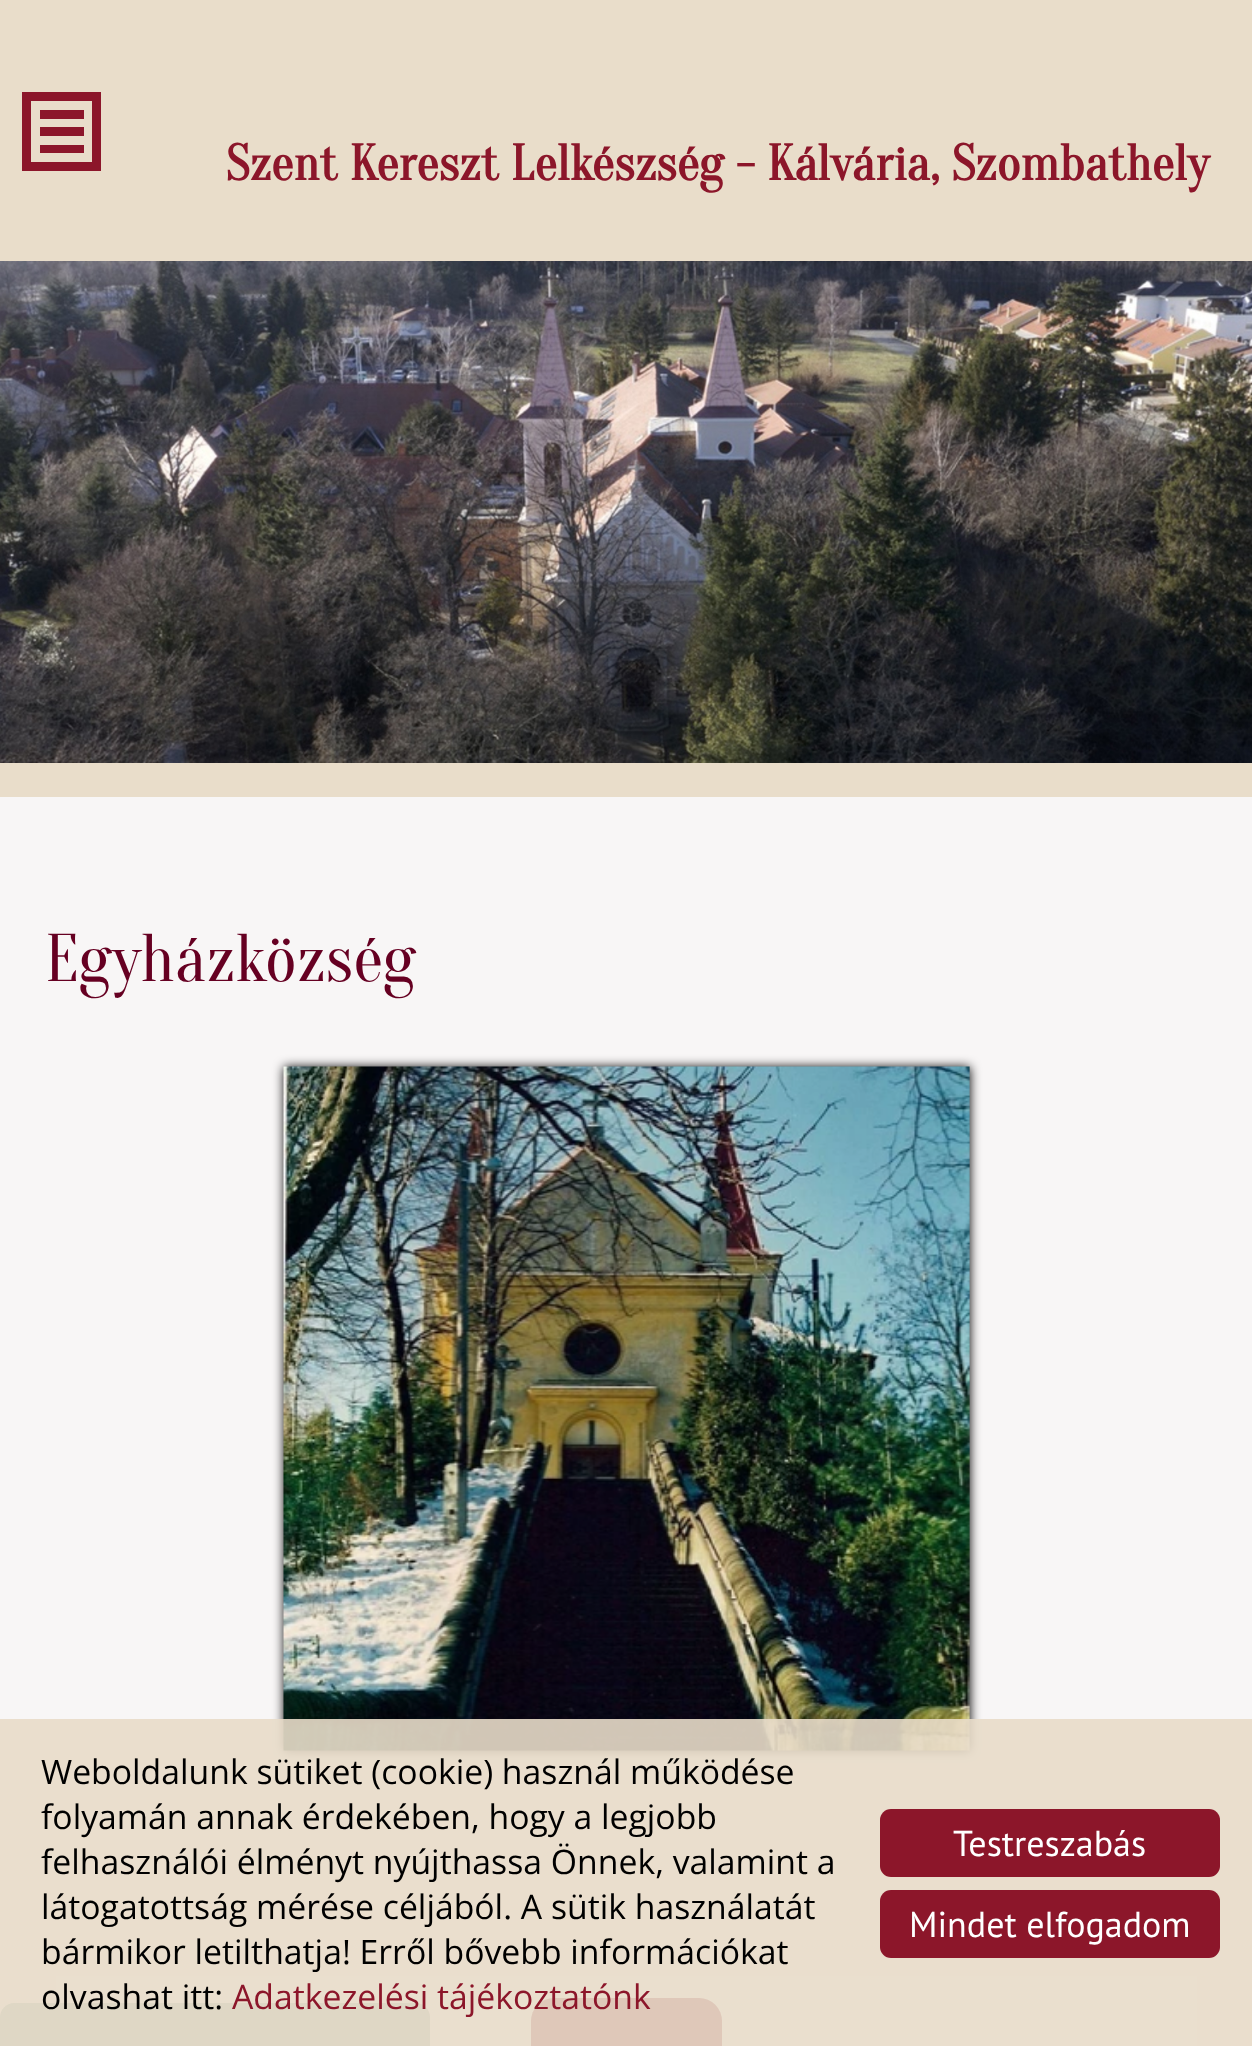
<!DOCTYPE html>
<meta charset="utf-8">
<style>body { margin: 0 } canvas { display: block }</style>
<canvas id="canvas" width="1252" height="2046"></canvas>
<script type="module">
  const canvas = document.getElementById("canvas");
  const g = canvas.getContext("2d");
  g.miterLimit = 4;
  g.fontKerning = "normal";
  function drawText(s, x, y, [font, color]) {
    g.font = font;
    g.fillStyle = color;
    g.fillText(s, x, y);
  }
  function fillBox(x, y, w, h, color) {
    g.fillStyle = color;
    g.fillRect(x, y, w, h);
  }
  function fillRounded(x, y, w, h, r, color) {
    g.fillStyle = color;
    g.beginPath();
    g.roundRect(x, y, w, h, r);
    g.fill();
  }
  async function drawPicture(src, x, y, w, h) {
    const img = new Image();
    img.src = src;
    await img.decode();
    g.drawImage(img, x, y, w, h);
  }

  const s1 = ["bold 50.4px Oranienbaum", "#8C162A"];
  const s2 = ["67.5px Oranienbaum", "#660022"];
  const s3 = ["33.75px Open Sans", "#000000"];
  const s4 = ["33.75px Open Sans", "#8C162A"];
  const s5 = ["36px PT Sans", "#FFFFFF"];

  fillBox(0, 0, 1252, 2046, "#E9DDCA");
  g.fillStyle = "#8C162A";
  g.beginPath();
  g.moveTo(40, 127);
  g.lineTo(40, 136);
  g.lineTo(84, 136);
  g.lineTo(84, 127);
  g.closePath();
  g.moveTo(40, 145);
  g.lineTo(40, 153);
  g.lineTo(84, 153);
  g.lineTo(84, 145);
  g.closePath();
  g.moveTo(40, 110);
  g.lineTo(40, 119);
  g.lineTo(84, 119);
  g.lineTo(84, 110);
  g.closePath();
  g.moveTo(22, 92);
  g.lineTo(101, 92);
  g.lineTo(101, 171);
  g.lineTo(22, 171);
  g.closePath();
  g.moveTo(92, 162);
  g.lineTo(92, 101);
  g.lineTo(31, 101);
  g.lineTo(31, 162);
  g.closePath();
  g.fill();
  drawText("Szent Kereszt Lelkészség - Kálvária, Szombathely", 226, 180, s1);
  await drawPicture("pic1.png", 0, 261, 1252, 502);
  fillBox(0, 797, 1252, 1249, "#F8F6F6");
  drawText("Egyházközség", 45, 981, s2);
  g.fillStyle = "#000000";
  g.filter = "blur(5.5px)";
  g.beginPath();
  g.rect(284, 1067, 686, 684);
  g.fill();
  g.filter = "none";
  await drawPicture("pic2.png", 283, 1066, 687, 685);
  fillBox(56, 1976, 1141, 70, "#FBFAFA");
  fillRounded(531, 1998, 191, 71, 23, "#8C162A");
  g.fillStyle = "rgba(121, 154, 143, 0.85)";
  g.beginPath();
  g.moveTo(14, 2003);
  g.lineTo(416, 2003);
  g.bezierCurveTo(423.5, 2003, 430, 2009.5, 430, 2017);
  g.lineTo(430, 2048);
  g.lineTo(0, 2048);
  g.lineTo(0, 2017);
  g.bezierCurveTo(0, 2009.5, 6.5, 2003, 14, 2003);
  g.closePath();
  g.fill();
  fillBox(0, 1719, 1252, 327, "rgba(232, 220, 201, 0.9)");
  drawText("Weboldalunk sütiket (cookie) használ működése", 41, 1784, s3);
  drawText("folyamán annak érdekében, hogy a legjobb", 41, 1829, s3);
  drawText("felhasználói élményt nyújthassa Önnek, valamint a", 41, 1874, s3);
  drawText("látogatottság mérése céljából. A sütik használatát", 41, 1919, s3);
  drawText("bármikor letilthatja! Erről bővebb információkat", 41, 1964, s3);
  drawText("olvashat itt:", 41, 2009, s3);
  drawText("Adatkezelési tájékoztatónk", 232, 2009, s4);
  fillRounded(880, 1809, 340, 68, 11, "#8C162A");
  drawText("Testreszabás", 953, 1856, s5);
  fillRounded(880, 1890, 340, 68, 11, "#8C162A");
  drawText("Mindet elfogadom", 909, 1937, s5);
</script>
